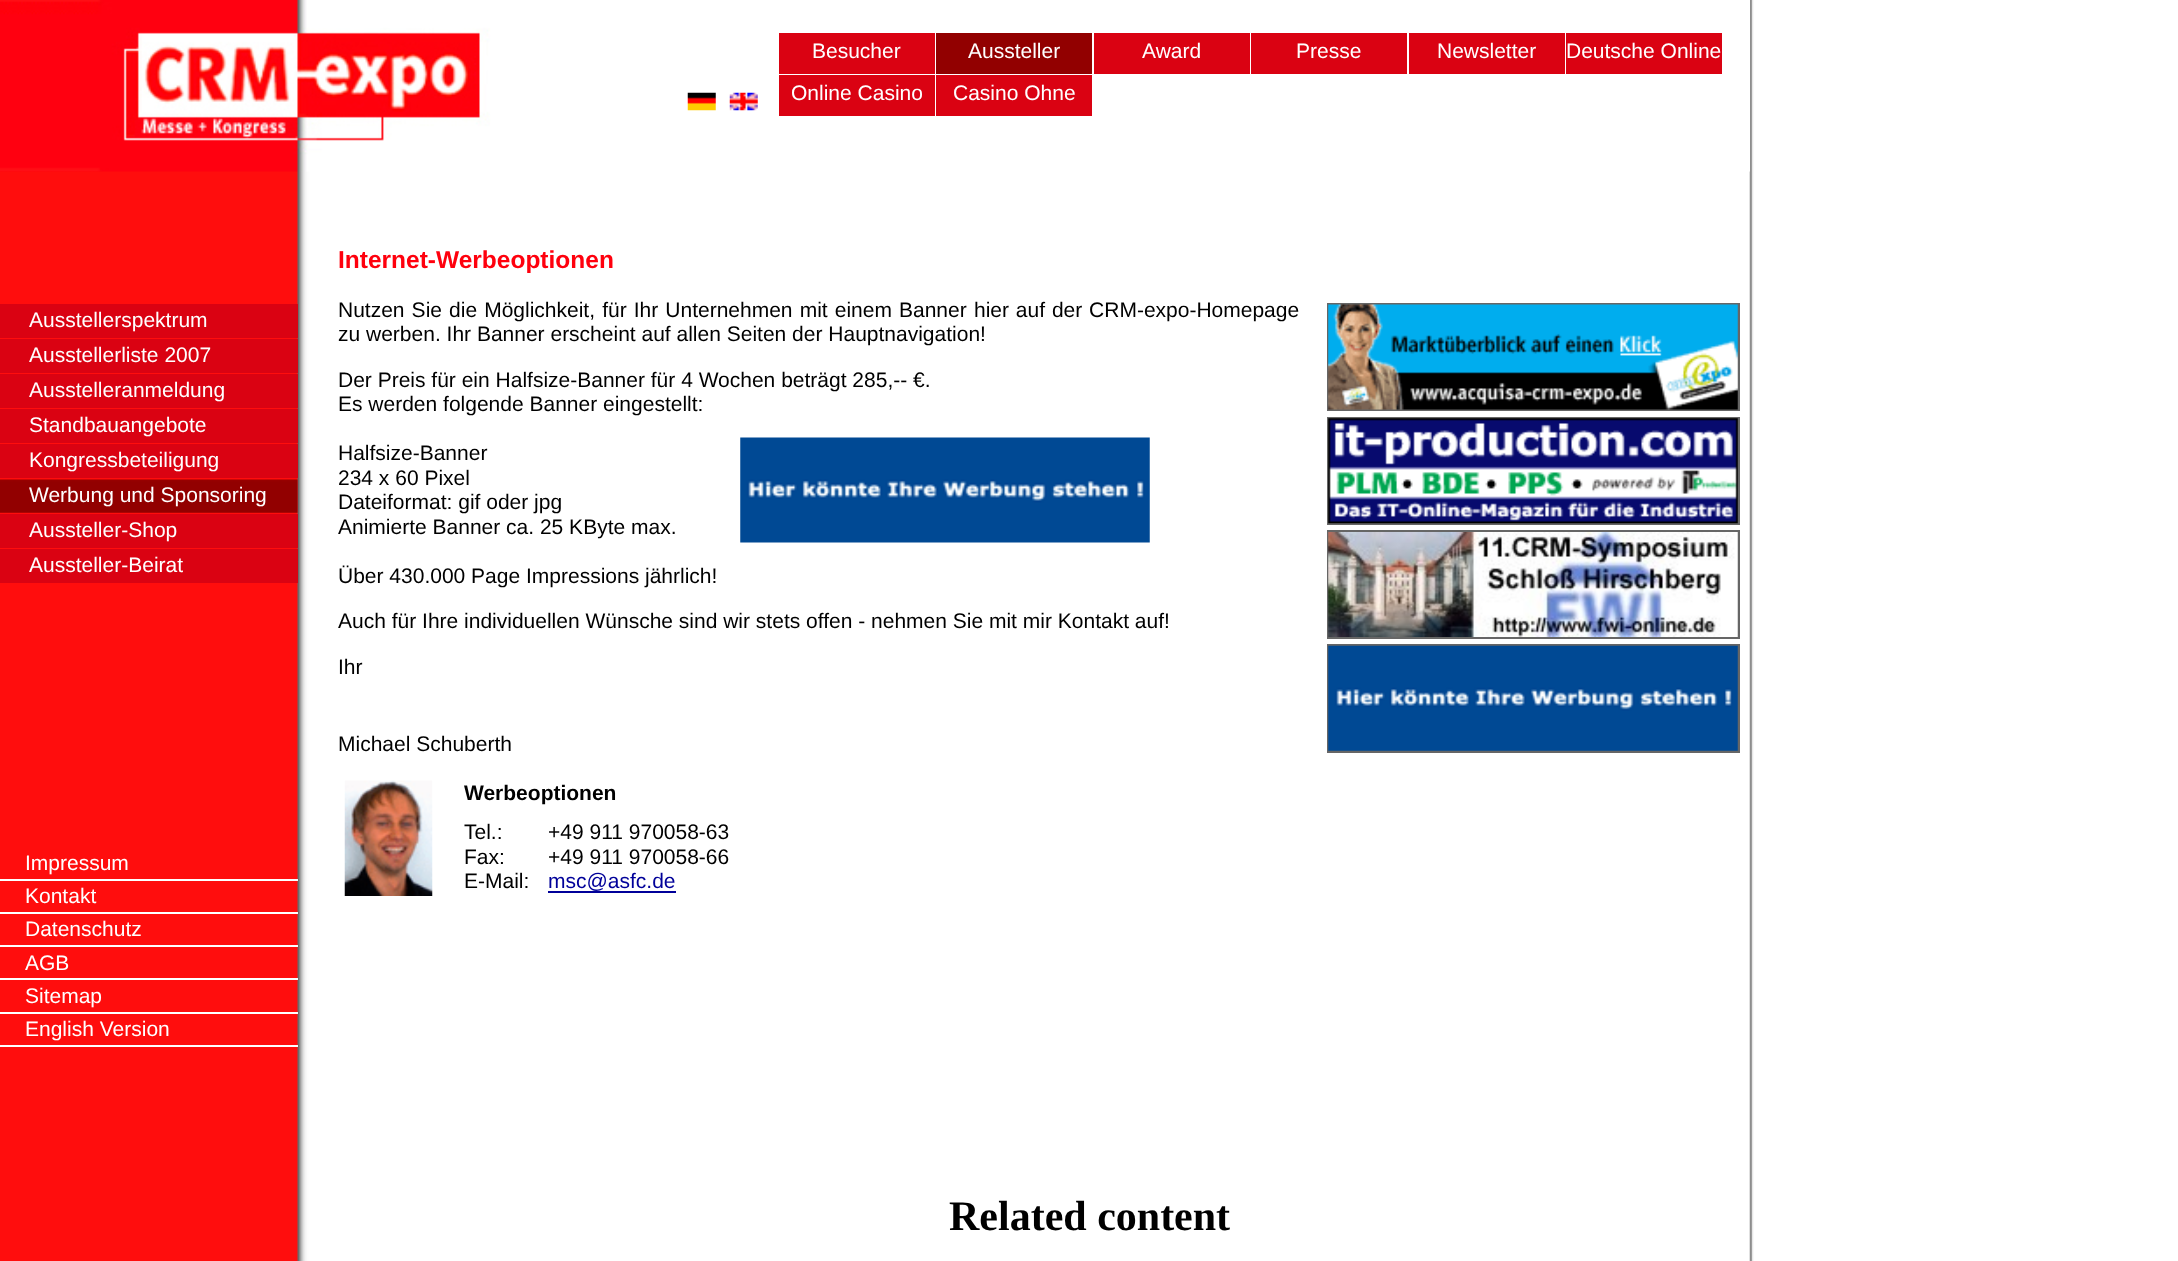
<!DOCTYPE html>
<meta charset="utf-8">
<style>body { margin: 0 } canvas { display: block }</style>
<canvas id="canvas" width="2178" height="1261"></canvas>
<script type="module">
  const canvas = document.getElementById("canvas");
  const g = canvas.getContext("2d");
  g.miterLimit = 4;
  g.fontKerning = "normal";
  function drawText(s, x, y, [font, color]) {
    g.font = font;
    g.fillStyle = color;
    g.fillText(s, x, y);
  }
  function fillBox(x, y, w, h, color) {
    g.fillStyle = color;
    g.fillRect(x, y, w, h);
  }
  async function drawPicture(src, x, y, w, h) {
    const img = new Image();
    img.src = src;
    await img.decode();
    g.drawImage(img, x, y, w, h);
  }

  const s1 = ["21px Liberation Sans", "#FFFFFF"];
  const s2 = ["bold 24.5px Liberation Sans", "#FF000D"];
  const s3 = ["21px Liberation Sans", "#000000"];
  const s4 = ["bold 21px Liberation Sans", "#000000"];
  const s5 = ["21px Liberation Sans", "#000099"];
  const s6 = ["bold 42px Liberation Serif", "#000000"];

  fillBox(0, 0, 2178, 1261, "#FFFFFF");
  await drawPicture("pic1.png", 0, 0, 1754, 1261);
  await drawPicture("pic2.png", 0, 0, 1750, 172);
  await drawPicture("pic3.png", 687, 92, 29, 19);
  await drawPicture("pic4.png", 729, 92, 29, 19);
  fillBox(779, 33, 156, 41, "#DA0212");
  drawText("Besucher", 812, 58, s1);
  fillBox(936, 33, 156, 41, "#920000");
  drawText("Aussteller", 968, 58, s1);
  fillBox(1094, 33, 156, 41, "#DA0212");
  drawText("Award", 1142, 58, s1);
  fillBox(1251, 33, 156, 41, "#DA0212");
  drawText("Presse", 1296, 58, s1);
  fillBox(1409, 33, 156, 41, "#DA0212");
  drawText("Newsletter", 1437, 58, s1);
  fillBox(1566, 33, 156, 41, "#DA0212");
  drawText("Deutsche Online", 1566, 58, s1);
  fillBox(779, 75, 156, 41, "#DA0212");
  drawText("Online Casino", 791, 100, s1);
  fillBox(936, 75, 156, 41, "#DA0212");
  drawText("Casino Ohne", 953, 100, s1);
  fillBox(0, 304, 298, 34, "#DA0212");
  drawText("Ausstellerspektrum", 29, 327, s1);
  fillBox(0, 339, 298, 34, "#DA0212");
  drawText("Ausstellerliste 2007", 29, 362, s1);
  fillBox(0, 374, 298, 34, "#DA0212");
  drawText("Ausstelleranmeldung", 29, 397, s1);
  fillBox(0, 409, 298, 34, "#DA0212");
  drawText("Standbauangebote", 29, 432, s1);
  fillBox(0, 444, 298, 34, "#DA0212");
  drawText("Kongressbeteiligung", 29, 467, s1);
  await drawPicture("pic5.png", 0, 479, 298, 34);
  drawText("Werbung und Sponsoring", 29, 502, s1);
  fillBox(0, 514, 298, 34, "#DA0212");
  drawText("Aussteller-Shop", 29, 537, s1);
  fillBox(0, 549, 298, 34, "#DA0212");
  drawText("Aussteller-Beirat", 29, 572, s1);
  fillBox(0, 879, 298, 2, "#FFFFFF");
  drawText("Impressum", 25, 870, s1);
  fillBox(0, 912, 298, 2, "#FFFFFF");
  drawText("Kontakt", 25, 903, s1);
  fillBox(0, 945, 298, 2, "#FFFFFF");
  drawText("Datenschutz", 25, 936, s1);
  fillBox(0, 978, 298, 2, "#FFFFFF");
  drawText("AGB", 25, 970, s1);
  fillBox(0, 1012, 298, 2, "#FFFFFF");
  drawText("Sitemap", 25, 1003, s1);
  fillBox(0, 1045, 298, 2, "#FFFFFF");
  drawText("English Version", 25, 1036, s1);
  drawText("Internet-Werbeoptionen", 338, 268, s2);
  g.wordSpacing = "1.25px";
  drawText("Nutzen Sie die Möglichkeit, für Ihr Unternehmen mit einem Banner", 338, 317, s3);
  g.wordSpacing = "1px";
  drawText("hier auf der CRM-expo-Homepage", 974, 317, s3);
  g.wordSpacing = "0px";
  drawText("zu werben. Ihr Banner erscheint auf allen Seiten der Hauptnavigation!", 338, 341, s3);
  drawText("Der Preis für ein Halfsize-Banner für 4 Wochen beträgt 285,-- €.", 338, 387, s3);
  drawText("Es werden folgende Banner eingestellt:", 338, 411, s3);
  drawText("Halfsize-Banner", 338, 460, s3);
  drawText("234 x 60 Pixel", 338, 485, s3);
  drawText("Dateiformat: gif oder jpg", 338, 509, s3);
  drawText("Animierte Banner ca. 25 KByte max.", 338, 534, s3);
  await drawPicture("pic6.png", 740, 437, 410, 106);
  drawText("Über 430.000 Page Impressions jährlich!", 338, 583, s3);
  drawText("Auch für Ihre individuellen Wünsche sind wir stets offen - nehmen Sie mit mir Kontakt auf!", 338, 628, s3);
  drawText("Ihr", 338, 674, s3);
  drawText("Michael Schuberth", 338, 751, s3);
  await drawPicture("pic7.png", 344, 780, 89, 116);
  drawText("Werbeoptionen", 464, 800, s4);
  drawText("Tel.:", 464, 839, s3);
  drawText("Fax:", 464, 864, s3);
  drawText("E-Mail:", 464, 888, s3);
  drawText("+49 911 970058-63", 548, 839, s3);
  drawText("+49 911 970058-66", 548, 864, s3);
  drawText("msc@asfc.de", 548, 888, s5);
  fillBox(548, 891, 128, 2, "#000099");
  fillBox(1327, 303, 413, 108, "#666666");
  await drawPicture("pic8.png", 1328, 304, 410, 106);
  fillBox(1327, 417, 413, 108, "#666666");
  await drawPicture("pic9.png", 1328, 418, 410, 106);
  fillBox(1327, 530, 413, 109, "#666666");
  await drawPicture("pic10.png", 1328, 532, 410, 105);
  fillBox(1327, 644, 413, 109, "#666666");
  await drawPicture("pic11.png", 1328, 645, 410, 106);
  drawText("Related content", 949, 1230, s6);
</script>
